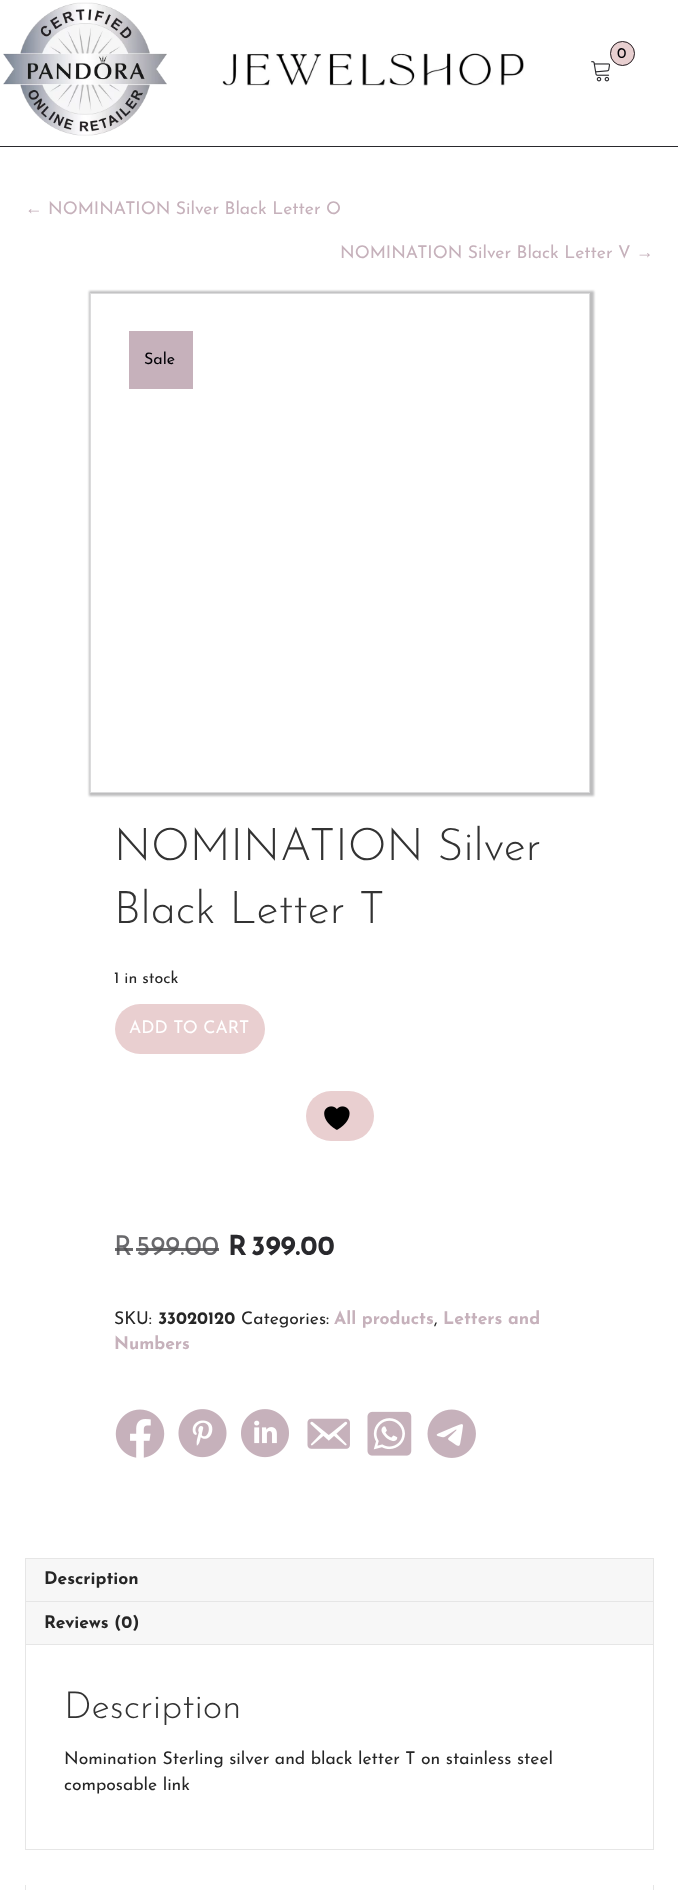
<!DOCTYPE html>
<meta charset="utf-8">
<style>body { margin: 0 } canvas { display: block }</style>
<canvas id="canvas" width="678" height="1890"></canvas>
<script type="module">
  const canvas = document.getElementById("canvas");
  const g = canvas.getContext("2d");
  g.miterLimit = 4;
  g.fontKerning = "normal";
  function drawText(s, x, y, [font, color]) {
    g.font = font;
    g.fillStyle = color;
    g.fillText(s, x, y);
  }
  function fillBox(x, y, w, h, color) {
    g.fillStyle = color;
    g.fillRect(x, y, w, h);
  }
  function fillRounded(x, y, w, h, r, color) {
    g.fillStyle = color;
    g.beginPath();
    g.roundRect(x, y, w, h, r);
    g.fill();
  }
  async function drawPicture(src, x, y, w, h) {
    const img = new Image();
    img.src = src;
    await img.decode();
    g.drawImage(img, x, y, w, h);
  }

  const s1 = ["15px Josefin Sans", "#000005"];
  const s2 = ["17.5px Liberation Sans", "#C6B1BB"];
  const s3 = ["17.5px Josefin Sans", "#C6B1BB"];
  const s4 = ["16px Josefin Sans", "#000005"];
  const s5 = ["300 45px Josefin Sans", "#333333"];
  const s6 = ["16px Josefin Sans", "#262626"];
  const s7 = ["17.5px Josefin Sans", "#FFFFFF"];
  const s8 = ["27.5px Josefin Sans", "#69696C"];
  const s9 = ["bold 27.5px Josefin Sans", "#29292D"];
  const s10 = ["17.5px Josefin Sans", "#262626"];
  const s11 = ["bold 17.5px Josefin Sans", "#262626"];
  const s12 = ["bold 17.5px Josefin Sans", "#C6B1BB"];
  const s13 = ["300 37.5px Josefin Sans", "#333333"];

  fillBox(0, 0, 678, 1890, "#FFFFFF");
  await drawPicture("pic1.png", 3, 2, 164, 134);
  await drawPicture("pic2.png", 222, 53, 302, 33);
  g.fillStyle = "#E8CFD0";
  g.beginPath();
  g.arc(622.5, 53.5, 12.5, 0, Math.PI * 2);
  g.fill();
  g.beginPath();
  g.arc(622.5, 53.5, 12, 0, Math.PI * 2);
  g.strokeStyle = "rgba(0, 0, 5, 0.84)";
  g.stroke();
  drawText("0", 617, 58, s1);
  await drawPicture("pic3.png", 591, 61, 19, 21);
  fillBox(0, 146, 678, 1, "#29292D");
  drawText("←", 25, 214, s2);
  drawText("NOMINATION Silver Black Letter O", 48, 214, s3);
  drawText("NOMINATION Silver Black Letter V", 340, 258, s3);
  drawText("→", 636, 258, s2);
  g.save();
  g.beginPath();
  g.moveTo(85, 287);
  g.lineTo(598, 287);
  g.lineTo(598, 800);
  g.lineTo(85, 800);
  g.closePath();
  g.moveTo(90, 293);
  g.lineTo(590, 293);
  g.lineTo(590, 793);
  g.lineTo(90, 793);
  g.closePath();
  g.clip("evenodd");
  g.fillStyle = "rgba(0, 0, 5, 0.26)";
  g.filter = "blur(1px)";
  g.beginPath();
  g.rect(89, 291, 505, 505);
  g.fill();
  g.filter = "none";
  g.restore();
  g.strokeStyle = "rgba(0, 0, 5, 0.14)";
  g.strokeRect(90.5, 293.5, 499, 499);
  fillBox(129, 331, 64, 58, "#C6B1BB");
  drawText("Sale", 144, 364, s4);
  drawText("NOMINATION Silver", 114, 860, s5);
  drawText("Black Letter T", 114, 923, s5);
  drawText("1 in stock", 114, 983, s6);
  fillRounded(115, 1004, 150, 50, 25, "#E9CFD0");
  drawText("ADD TO CART", 129, 1033, s7);
  fillRounded(306, 1091, 68, 50, 25, "#E9CFD0");
  await drawPicture("pic4.png", 324, 1106, 26, 24);
  drawText("R", 114, 1255, s8);
  fillBox(115, 1248, 18, 3, "rgba(77, 77, 80, 0.84)");
  drawText("599.00", 136, 1255, s8);
  fillBox(136, 1248, 83, 3, "rgba(77, 77, 80, 0.84)");
  drawText("R", 228, 1255, s9);
  drawText("399.00", 251, 1255, s9);
  drawText("SKU:", 114, 1324, s10);
  drawText("33020120", 158, 1324, s11);
  drawText("Categories:", 241, 1324, s10);
  drawText("All products", 334, 1324, s12);
  drawText(",", 434, 1324, s10);
  drawText("Letters and", 443, 1324, s12);
  drawText("Numbers", 114, 1349, s12);
  await drawPicture("pic5.png", 115, 1409, 50, 49);
  await drawPicture("pic6.png", 178, 1409, 49, 49);
  await drawPicture("pic7.png", 241, 1409, 48, 49);
  await drawPicture("pic8.png", 307, 1418, 43, 31);
  await drawPicture("pic9.png", 367, 1411, 45, 45);
  await drawPicture("pic10.png", 427, 1409, 49, 49);
  fillBox(26, 1559, 627, 42, "#F7F7F7");
  fillBox(25, 1558, 629, 1, "#E6E6E6");
  fillBox(653, 1558, 1, 43, "#E6E6E6");
  fillBox(25, 1558, 1, 43, "#E6E6E6");
  drawText("Description", 44, 1584, s11);
  fillBox(26, 1602, 627, 42, "#F7F7F7");
  fillBox(25, 1601, 629, 1, "#E6E6E6");
  fillBox(653, 1601, 1, 44, "#E6E6E6");
  fillBox(25, 1601, 1, 44, "#E6E6E6");
  drawText("Reviews (0)", 44, 1628, s11);
  fillBox(25, 1644, 629, 1, "#E6E6E6");
  fillBox(653, 1645, 1, 205, "#E6E6E6");
  fillBox(25, 1849, 629, 1, "#E6E6E6");
  fillBox(25, 1645, 1, 205, "#E6E6E6");
  drawText("Description", 64, 1718, s13);
  drawText("Nomination Sterling silver and black letter T on stainless steel", 64, 1764, s10);
  drawText("composable link", 64, 1790, s10);
  fillBox(653, 1885, 1, 5, "#E6E6E6");
  fillBox(25, 1885, 1, 5, "#E6E6E6");
</script>
